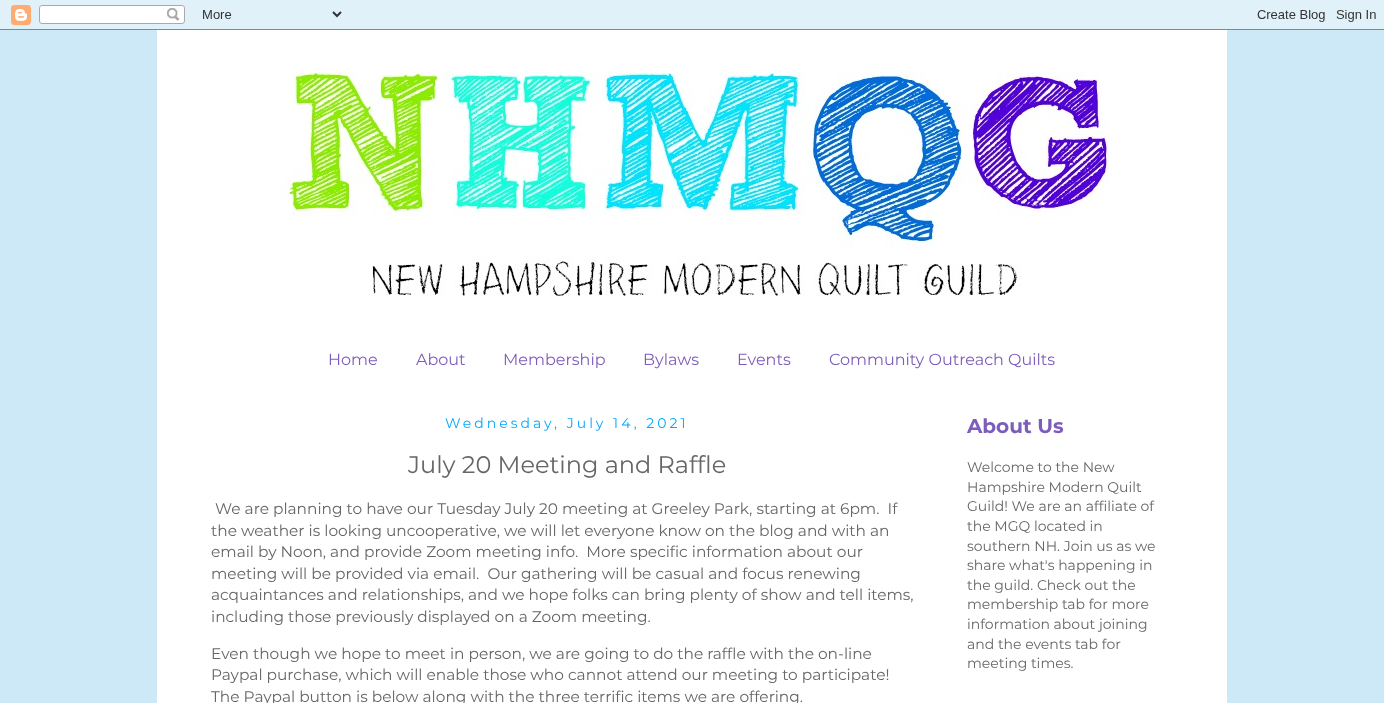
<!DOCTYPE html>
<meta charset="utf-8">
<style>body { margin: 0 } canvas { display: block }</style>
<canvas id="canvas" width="1384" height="703"></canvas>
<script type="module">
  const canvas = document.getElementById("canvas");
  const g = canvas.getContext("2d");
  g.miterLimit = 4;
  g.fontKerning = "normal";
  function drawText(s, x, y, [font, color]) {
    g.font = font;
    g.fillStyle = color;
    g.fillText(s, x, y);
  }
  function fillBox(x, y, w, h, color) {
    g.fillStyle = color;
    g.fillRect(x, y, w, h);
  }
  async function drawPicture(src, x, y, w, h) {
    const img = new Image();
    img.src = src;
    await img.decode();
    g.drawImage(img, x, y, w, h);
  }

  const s1 = ["16px Montserrat", "#7D5DBB"];
  const s2 = ["14px Montserrat", "#00A9FF"];
  const s3 = ["24px Montserrat", "#666666"];
  const s4 = ["15.4px Montserrat", "#666666"];
  const s5 = ["bold 20px Montserrat", "#7D5DBB"];
  const s6 = ["14px Montserrat", "#666666"];

  fillBox(0, 0, 1384, 703, "#CDE8F6");
  await drawPicture("pic1.png", 0, 0, 1384, 30);
  fillBox(157, 30, 1070, 673, "#FFFFFF");
  await drawPicture("pic2.png", 279, 71, 830, 225);
  drawText("Home", 328, 365, s1);
  drawText("About", 416, 365, s1);
  drawText("Membership", 503, 365, s1);
  drawText("Bylaws", 643, 365, s1);
  drawText("Events", 737, 365, s1);
  drawText("Community Outreach Quilts", 829, 365, s1);
  g.letterSpacing = "3px";
  drawText("Wednesday, July 14, 2021", 445, 428, s2);
  g.letterSpacing = "0px";
  drawText("July 20 Meeting and Raffle", 408, 473, s3);
  drawText("We are planning to have our Tuesday July 20 meeting at Greeley Park, starting at 6pm.  If", 215, 514, s4);
  drawText("the weather is looking uncooperative, we will let everyone know on the blog and with an", 211, 536, s4);
  drawText("email by Noon, and provide Zoom meeting info.  More specific information about our", 211, 557, s4);
  drawText("meeting will be provided via email.  Our gathering will be casual and focus renewing", 211, 579, s4);
  drawText("acquaintances and relationships, and we hope folks can bring plenty of show and tell items,", 211, 600, s4);
  drawText("including those previously displayed on a Zoom meeting.", 211, 622, s4);
  drawText("Even though we hope to meet in person, we are going to do the raffle with the on-line", 211, 659, s4);
  drawText("Paypal purchase, which will enable those who cannot attend our meeting to participate!", 211, 680, s4);
  drawText("The Paypal button is below along with the three terrific items we are offering.", 211, 702, s4);
  drawText("About Us", 967, 433, s5);
  drawText("Welcome to the New", 967, 472, s6);
  drawText("Hampshire Modern Quilt", 967, 492, s6);
  drawText("Guild! We are an affiliate of", 967, 511, s6);
  drawText("the MGQ located in", 967, 531, s6);
  drawText("southern NH. Join us as we", 967, 551, s6);
  drawText("share what's happening in", 967, 570, s6);
  drawText("the guild. Check out the", 967, 590, s6);
  drawText("membership tab for more", 967, 609, s6);
  drawText("information about joining", 967, 629, s6);
  drawText("and the events tab for", 967, 649, s6);
  drawText("meeting times.", 967, 668, s6);
</script>
